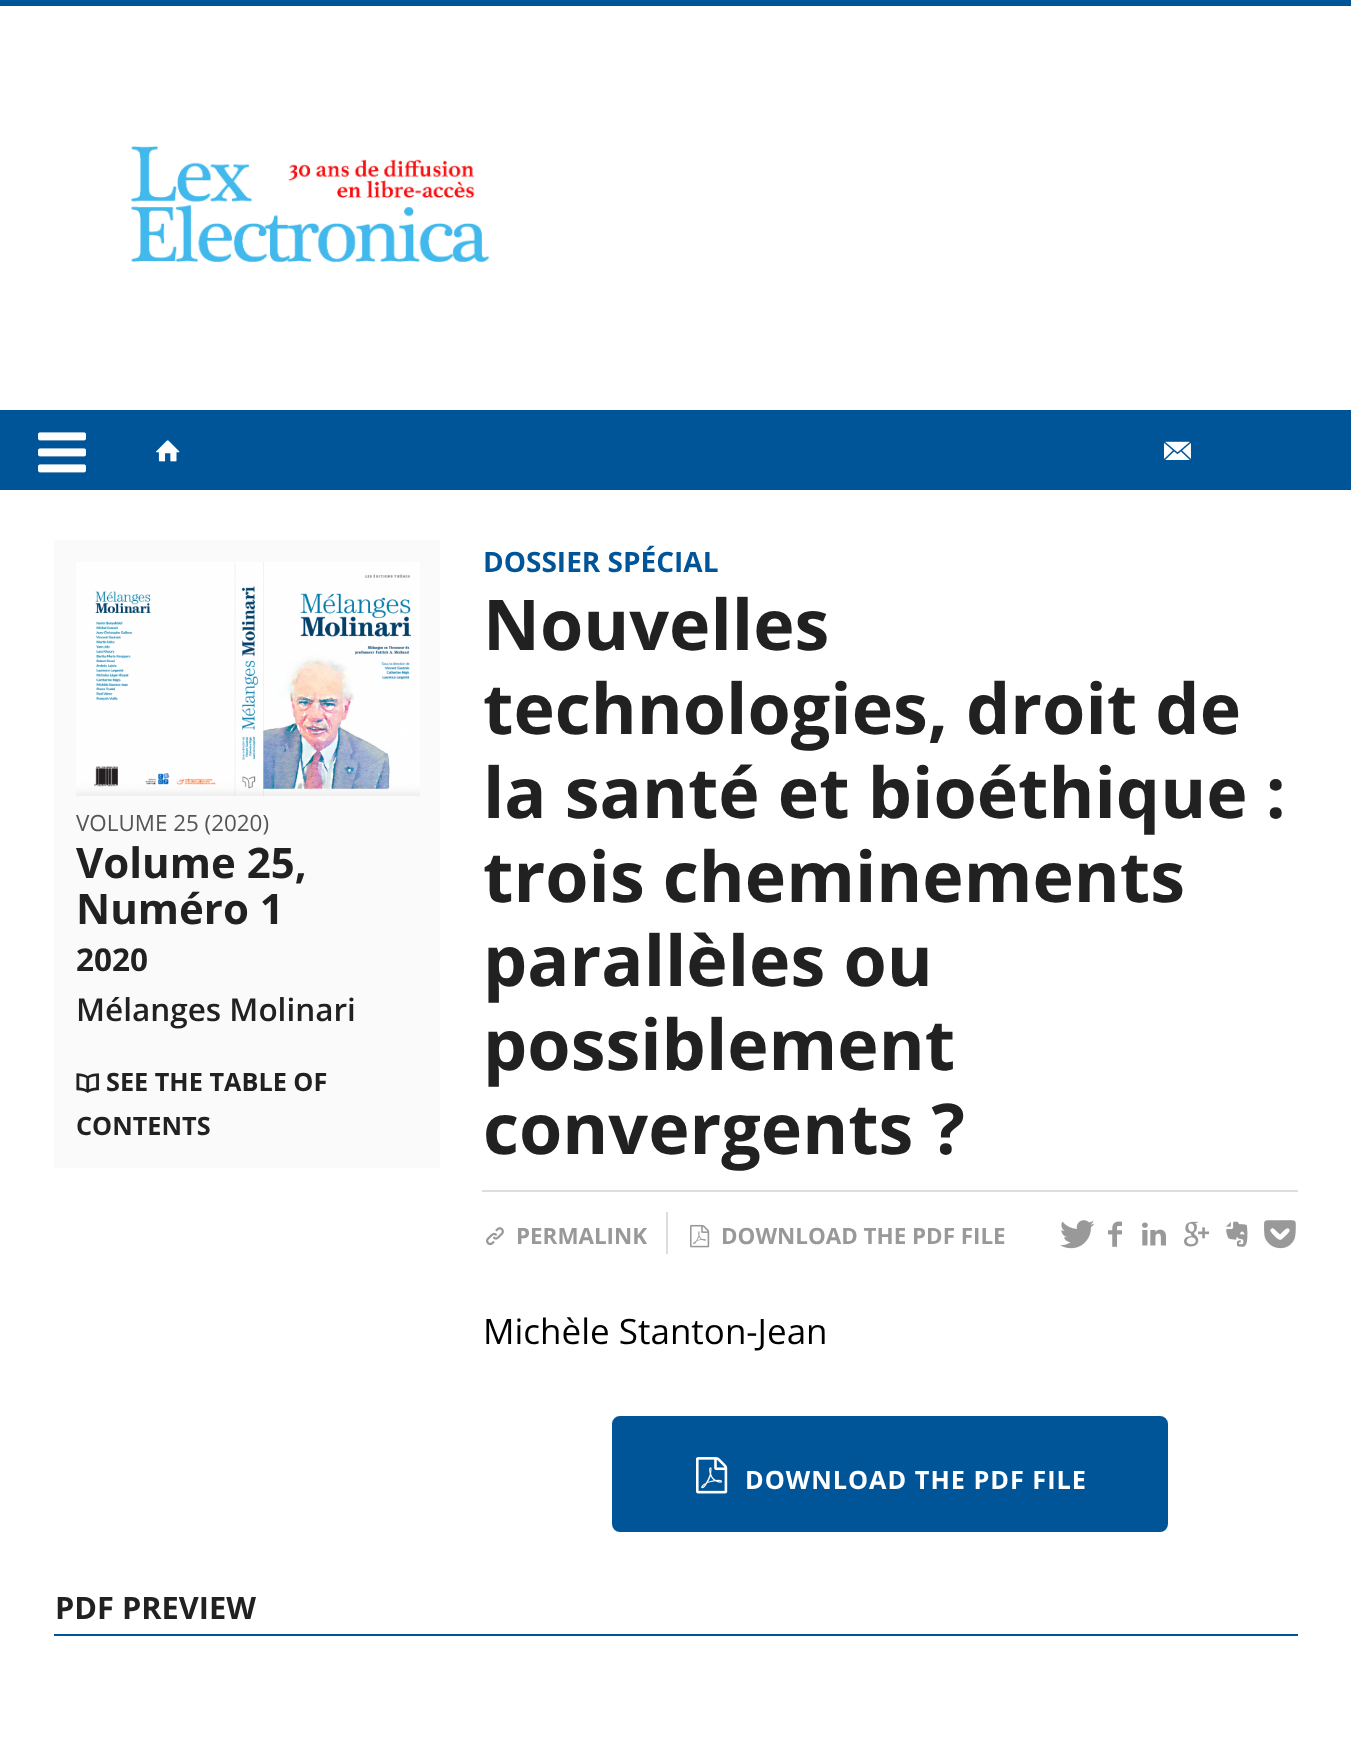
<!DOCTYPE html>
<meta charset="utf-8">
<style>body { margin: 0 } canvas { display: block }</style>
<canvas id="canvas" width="1351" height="1737"></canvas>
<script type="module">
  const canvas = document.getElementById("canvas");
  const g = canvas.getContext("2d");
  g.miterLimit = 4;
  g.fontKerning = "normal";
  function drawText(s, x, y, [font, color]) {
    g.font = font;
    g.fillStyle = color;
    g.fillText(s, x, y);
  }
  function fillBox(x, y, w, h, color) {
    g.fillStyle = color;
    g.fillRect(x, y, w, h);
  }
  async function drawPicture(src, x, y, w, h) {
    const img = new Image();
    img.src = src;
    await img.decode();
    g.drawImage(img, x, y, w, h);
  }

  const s1 = ["22.4px Open Sans", "#555555"];
  const s2 = ["bold 42px Open Sans", "#212121"];
  const s3 = ["bold 31.5px Open Sans", "#212121"];
  const s4 = ["600 31.5px Open Sans", "#212121"];
  const s5 = ["bold 25.25px Open Sans", "#212121"];
  const s6 = ["bold 28px Open Sans", "#005599"];
  const s7 = ["bold 70px Open Sans", "#212121"];
  const s8 = ["bold 22.4px Open Sans", "#999999"];
  const s9 = ["35px Open Sans", "#000000"];
  const s10 = ["bold 25.25px Open Sans", "#FFFFFF"];
  const s11 = ["bold 30.75px Open Sans", "#212121"];

  fillBox(0, 0, 1351, 1737, "#FFFFFF");
  fillBox(0, 0, 1351, 6, "#005599");
  await drawPicture("pic1.png", 130, 146, 360, 117);
  fillBox(0, 410, 1351, 80, "#005599");
  await drawPicture("pic2.png", 38, 432, 48, 41);
  await drawPicture("pic3.png", 156, 440, 24, 22);
  await drawPicture("pic4.png", 1164, 441, 27, 19);
  fillBox(54, 540, 386, 628, "#FAFAFA");
  await drawPicture("pic5.png", 76, 562, 344, 234);
  drawText("VOLUME 25 (2020)", 76, 831, s1);
  drawText("Volume 25,", 76, 878, s2);
  drawText("Numéro 1", 76, 924, s2);
  drawText("2020", 76, 971, s3);
  drawText("Mélanges Molinari", 76, 1021, s4);
  await drawPicture("pic6.png", 76, 1073, 23, 20);
  drawText("SEE THE TABLE OF", 106, 1091, s5);
  drawText("CONTENTS", 76, 1135, s5);
  drawText("DOSSIER SPÉCIAL", 483, 572, s6);
  drawText("Nouvelles", 483, 650, s7);
  drawText("technologies, droit de", 483, 734, s7);
  drawText("la santé et bioéthique :", 483, 818, s7);
  drawText("trois cheminements", 483, 902, s7);
  drawText("parallèles ou", 483, 986, s7);
  drawText("possiblement", 483, 1070, s7);
  drawText("convergents ?", 483, 1154, s7);
  fillBox(482, 1190, 816, 2, "#DDDDDD");
  fillBox(666, 1212, 2, 42, "#DDDDDD");
  await drawPicture("pic7.png", 486, 1227, 18, 19);
  drawText("PERMALINK", 516, 1244, s8);
  await drawPicture("pic8.png", 690, 1224, 20, 24);
  drawText("DOWNLOAD THE PDF FILE", 721, 1244, s8);
  await drawPicture("pic9.png", 1060, 1220, 35, 29);
  await drawPicture("pic10.png", 1108, 1221, 14, 26);
  await drawPicture("pic11.png", 1142, 1222, 24, 24);
  await drawPicture("pic12.png", 1184, 1221, 26, 26);
  await drawPicture("pic13.png", 1226, 1221, 22, 26);
  await drawPicture("pic14.png", 1264, 1220, 32, 29);
  drawText("Michèle Stanton-Jean", 483, 1344, s9);
  g.fillStyle = "#005599";
  g.beginPath();
  g.roundRect(613, 1417, 554, 114, 7);
  g.fill();
  g.strokeStyle = "#005599";
  g.lineWidth = 2;
  g.stroke();
  await drawPicture("pic15.png", 696, 1457, 32, 37);
  g.letterSpacing = "1px";
  drawText("DOWNLOAD THE PDF FILE", 745, 1489, s10);
  fillBox(54, 1634, 1244, 2, "#005599");
  g.letterSpacing = "0px";
  drawText("PDF PREVIEW", 55, 1619, s11);
</script>
